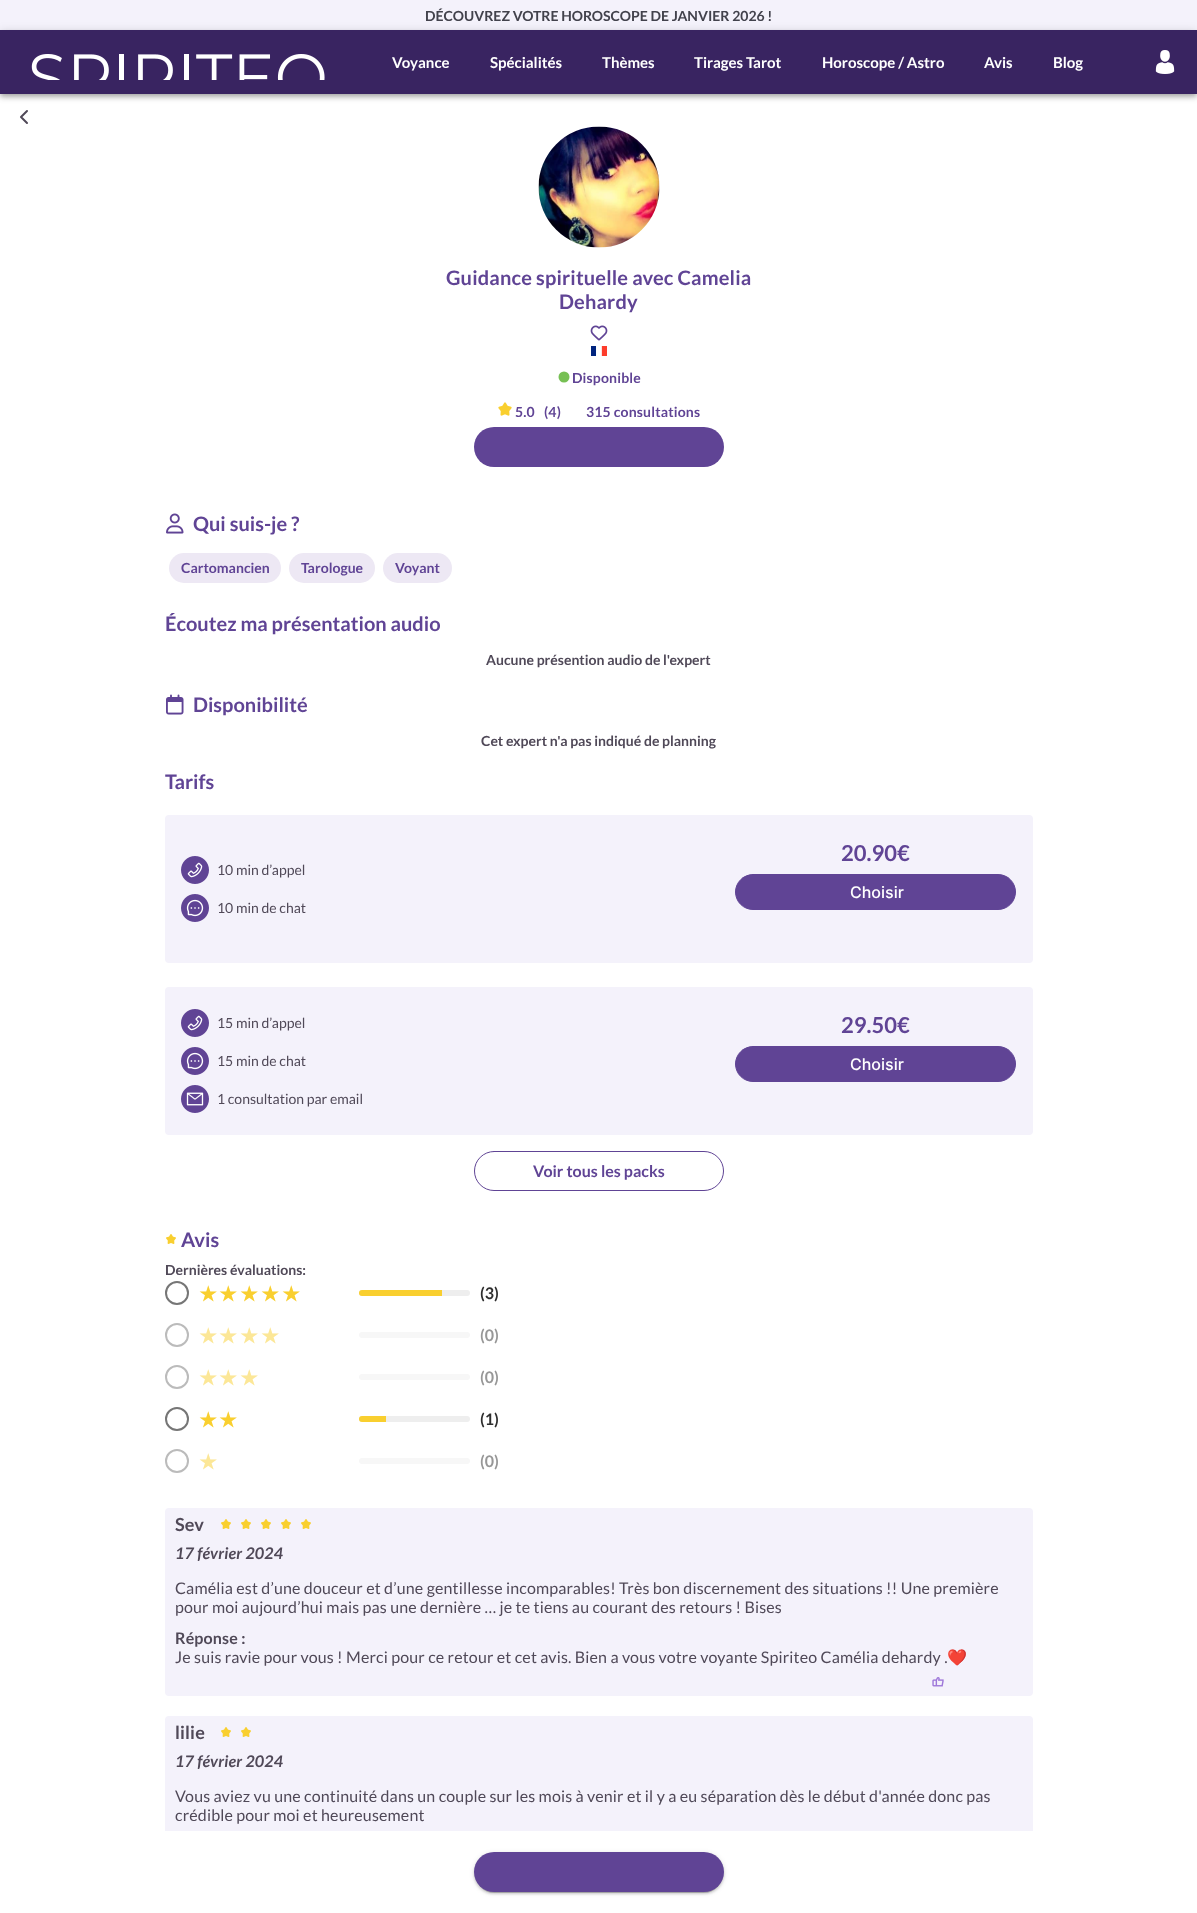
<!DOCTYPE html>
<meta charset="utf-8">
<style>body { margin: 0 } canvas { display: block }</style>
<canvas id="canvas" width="1197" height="1913"></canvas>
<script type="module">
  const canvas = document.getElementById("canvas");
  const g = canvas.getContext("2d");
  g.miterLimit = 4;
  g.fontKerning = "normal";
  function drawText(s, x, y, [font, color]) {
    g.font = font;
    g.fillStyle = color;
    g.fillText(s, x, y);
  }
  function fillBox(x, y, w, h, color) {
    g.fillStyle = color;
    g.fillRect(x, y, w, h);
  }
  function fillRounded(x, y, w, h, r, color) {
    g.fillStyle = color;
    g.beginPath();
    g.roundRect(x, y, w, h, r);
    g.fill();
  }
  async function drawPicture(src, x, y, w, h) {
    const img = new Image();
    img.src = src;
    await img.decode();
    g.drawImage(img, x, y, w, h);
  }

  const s1 = ["bold 14px Lato", "#42424C"];
  const s2 = ["bold 15px Lato", "#FFFFFF"];
  const s3 = ["bold 20px Lato", "#604495"];
  const s4 = ["bold 14px Lato", "#604495"];
  const s5 = ["bold 14px Lato", "#504958"];
  const s6 = ["14px Lato", "#504958"];
  const s7 = ["bold 22px Lato", "#604495"];
  const s8 = ["500 16px Inter", "#FFFFFF"];
  const s9 = ["bold 16px Lato", "#604495"];
  const s10 = ["bold 20px DejaVu Sans", "#F9CF2F"];
  const s11 = ["bold 16px Lato", "#2E2E2E"];
  const s12 = ["bold 20px DejaVu Sans", "#FCE797"];
  const s13 = ["bold 16px Lato", "#979797"];
  const s14 = ["bold 18px Lato", "#504958"];
  const s15 = ["italic bold 16px Lato", "#504958"];
  const s16 = ["16px Lato", "#504958"];
  const s17 = ["bold 16px Lato", "#504958"];
  const s18 = ["16px Noto Color Emoji", "#504958"];

  fillBox(0, 0, 1197, 1913, "#FFFFFF");
  fillBox(0, 0, 1197, 30, "#F4F2FB");
  drawText("DÉCOUVREZ VOTRE HOROSCOPE DE JANVIER 2026 !", 425, 21, s1);
  g.beginPath();
  g.moveTo(27, 111);
  g.lineTo(21, 117);
  g.lineTo(27, 123);
  g.strokeStyle = "#504958";
  g.lineWidth = 2;
  g.lineCap = "round";
  g.lineJoin = "round";
  g.stroke();
  g.fillStyle = "rgba(0, 0, 0, 0.12)";
  g.filter = "blur(5px)";
  g.beginPath();
  g.rect(0, 31, 1197, 64);
  g.fill();
  g.filter = "none";
  g.fillStyle = "rgba(0, 0, 0, 0.14)";
  g.filter = "blur(2.5px)";
  g.beginPath();
  g.rect(0, 34, 1197, 64);
  g.fill();
  g.filter = "none";
  g.fillStyle = "rgba(0, 0, 0, 0.2)";
  g.filter = "blur(2px)";
  g.beginPath();
  g.rect(1, 33, 1195, 62);
  g.fill();
  g.filter = "none";
  fillBox(0, 30, 1197, 64, "#392461");
  await drawPicture("pic1.png", 31, 54, 294, 26);
  drawText("Voyance", 392, 68, s2);
  drawText("Spécialités", 490, 68, s2);
  drawText("Thèmes", 602, 68, s2);
  drawText("Tirages Tarot", 694, 68, s2);
  drawText("Horoscope / Astro", 822, 68, s2);
  drawText("Avis", 984, 68, s2);
  drawText("Blog", 1053, 68, s2);
  await drawPicture("pic2.png", 1155, 50, 20, 24);
  await drawPicture("pic3.png", 538, 126, 122, 122);
  g.letterSpacing = "0.16px";
  drawText("Guidance spirituelle avec Camelia", 446, 285, s3);
  drawText("Dehardy", 559, 309, s3);
  await drawPicture("pic4.png", 590, 325, 18, 16);
  await drawPicture("pic5.png", 591, 346, 16, 10);
  g.fillStyle = "#77C054";
  g.beginPath();
  g.arc(564, 377, 5.5, 0, Math.PI * 2);
  g.fill();
  drawText("Disponible", 572, 383, s4);
  await drawPicture("pic6.png", 498, 402, 14, 14);
  drawText("5.0", 515, 417, s4);
  drawText("(4)", 544, 417, s4);
  drawText("315 consultations", 586, 417, s4);
  fillRounded(474, 427, 250, 40, 20, "#604495");
  await drawPicture("pic7.png", 166, 513, 18, 21);
  g.letterSpacing = "0px";
  drawText("Qui suis-je ?", 193, 531, s3);
  fillRounded(169, 553, 112, 30, 15, "#EDE8F4");
  drawText("Cartomancien", 181, 573, s4);
  fillRounded(289, 553, 86, 30, 15, "#EDE8F4");
  drawText("Tarologue", 301, 573, s4);
  fillRounded(383, 553, 69, 30, 15, "#EDE8F4");
  drawText("Voyant", 395, 573, s4);
  drawText("Écoutez ma présentation audio", 165, 631, s3);
  drawText("Aucune présention audio de l'expert", 486, 665, s5);
  await drawPicture("pic8.png", 166, 694, 18, 21);
  drawText("Disponibilité", 193, 712, s3);
  drawText("Cet expert n'a pas indiqué de planning", 481, 746, s5);
  drawText("Tarifs", 165, 789, s3);
  fillRounded(165, 815, 868, 148, 4, "#F4F2FB");
  await drawPicture("pic9.png", 181, 856, 28, 28);
  drawText("10 min d’appel", 217, 875, s6);
  await drawPicture("pic10.png", 181, 894, 28, 28);
  drawText("10 min de chat", 217, 913, s6);
  drawText("20.90€", 841, 861, s7);
  g.beginPath();
  g.roundRect(735.5, 874.5, 280, 35, 17.5);
  g.fill();
  g.strokeStyle = "#604495";
  g.lineWidth = 1;
  g.lineJoin = "miter";
  g.stroke();
  drawText("Choisir", 850, 898, s8);
  fillRounded(165, 987, 868, 148, 4, "#F4F2FB");
  await drawPicture("pic9.png", 181, 1009, 28, 28);
  drawText("15 min d’appel", 217, 1028, s6);
  await drawPicture("pic10.png", 181, 1047, 28, 28);
  drawText("15 min de chat", 217, 1066, s6);
  await drawPicture("pic11.png", 181, 1085, 28, 28);
  drawText("1 consultation par email", 217, 1104, s6);
  drawText("29.50€", 841, 1033, s7);
  g.beginPath();
  g.roundRect(735.5, 1046.5, 280, 35, 17.5);
  g.fill();
  g.stroke();
  drawText("Choisir", 850, 1070, s8);
  g.beginPath();
  g.roundRect(474.5, 1151.5, 249, 39, 19.5);
  g.stroke();
  drawText("Voir tous les packs", 533, 1177, s9);
  await drawPicture("pic12.png", 166, 1234, 10, 10);
  drawText("Avis", 181, 1247, s3);
  drawText("Dernières évaluations:", 165, 1275, s5);
  g.beginPath();
  g.arc(177, 1293, 11, 0, Math.PI * 2);
  g.strokeStyle = "#767676";
  g.lineWidth = 2;
  g.stroke();
  drawText("★", 199, 1301, s10);
  drawText("★", 219, 1301, s10);
  drawText("★", 240, 1301, s10);
  drawText("★", 261, 1301, s10);
  drawText("★", 282, 1301, s10);
  fillRounded(359, 1290, 111, 6, 3, "#EEEEEE");
  g.fillStyle = "#F9CF2F";
  g.beginPath();
  g.roundRect(359, 1290, 83, 6, [3, 0, 0, 3]);
  g.fill();
  drawText("(3)", 480, 1299, s11);
  g.beginPath();
  g.arc(177, 1335, 11, 0, Math.PI * 2);
  g.strokeStyle = "#BBBBBB";
  g.stroke();
  drawText("★", 199, 1343, s12);
  drawText("★", 219, 1343, s12);
  drawText("★", 240, 1343, s12);
  drawText("★", 261, 1343, s12);
  fillRounded(359, 1332, 111, 6, 3, "#F7F7F7");
  drawText("(0)", 480, 1341, s13);
  g.beginPath();
  g.arc(177, 1377, 11, 0, Math.PI * 2);
  g.stroke();
  drawText("★", 199, 1385, s12);
  drawText("★", 219, 1385, s12);
  drawText("★", 240, 1385, s12);
  fillRounded(359, 1374, 111, 6, 3, "#F7F7F7");
  drawText("(0)", 480, 1383, s13);
  g.beginPath();
  g.arc(177, 1419, 11, 0, Math.PI * 2);
  g.strokeStyle = "#767676";
  g.stroke();
  drawText("★", 199, 1427, s10);
  drawText("★", 219, 1427, s10);
  fillRounded(359, 1416, 111, 6, 3, "#EEEEEE");
  g.fillStyle = "#F9CF2F";
  g.beginPath();
  g.roundRect(359, 1416, 27, 6, [3, 0, 0, 3]);
  g.fill();
  drawText("(1)", 480, 1425, s11);
  g.beginPath();
  g.arc(177, 1461, 11, 0, Math.PI * 2);
  g.strokeStyle = "#BBBBBB";
  g.stroke();
  drawText("★", 199, 1469, s12);
  fillRounded(359, 1458, 111, 6, 3, "#F7F7F7");
  drawText("(0)", 480, 1467, s13);
  fillRounded(165, 1508, 868, 188, 4, "#F4F2FB");
  g.letterSpacing = "0.16px";
  drawText("Sev", 175, 1531, s14);
  await drawPicture("pic13.png", 221, 1519, 10, 10);
  await drawPicture("pic13.png", 241, 1519, 10, 10);
  await drawPicture("pic13.png", 261, 1519, 10, 10);
  await drawPicture("pic13.png", 281, 1519, 10, 10);
  await drawPicture("pic13.png", 301, 1519, 10, 10);
  drawText("17 février 2024", 175, 1559, s15);
  drawText("Camélia est d’une douceur et d’une gentillesse incomparables! Très bon discernement des situations !! Une première", 175, 1594, s16);
  drawText("pour moi aujourd’hui mais pas une dernière … je te tiens au courant des retours ! Bises", 175, 1613, s16);
  drawText("Réponse :", 175, 1644, s17);
  drawText("Je suis ravie pour vous ! Merci pour ce retour et cet avis. Bien a vous votre voyante Spiriteo Camélia dehardy .", 175, 1663, s16);
  drawText("❤️", 947, 1663, s18);
  await drawPicture("pic14.png", 932, 1677, 12, 10);
  fillRounded(165, 1716, 868, 137, 4, "#F4F2FB");
  drawText("lilie", 175, 1739, s14);
  await drawPicture("pic13.png", 221, 1727, 10, 10);
  await drawPicture("pic13.png", 241, 1727, 10, 10);
  drawText("17 février 2024", 175, 1767, s15);
  drawText("Vous aviez vu une continuité dans un couple sur les mois à venir et il y a eu séparation dès le début d'année donc pas", 175, 1802, s16);
  drawText("crédible pour moi et heureusement", 175, 1821, s16);
  fillBox(165, 1831, 868, 22, "#FFFFFF");
  g.fillStyle = "rgba(0, 0, 0, 0.12)";
  g.filter = "blur(2.5px)";
  g.beginPath();
  g.roundRect(474, 1853, 250, 40, 20);
  g.fill();
  g.filter = "none";
  g.fillStyle = "rgba(0, 0, 0, 0.14)";
  g.filter = "blur(1px)";
  g.beginPath();
  g.roundRect(474, 1854, 250, 40, 20);
  g.fill();
  g.filter = "none";
  g.fillStyle = "rgba(0, 0, 0, 0.2)";
  g.filter = "blur(0.5px)";
  g.beginPath();
  g.roundRect(476, 1857, 246, 36, 18);
  g.fill();
  g.filter = "none";
  fillRounded(474, 1852, 250, 40, 20, "#604495");
</script>
